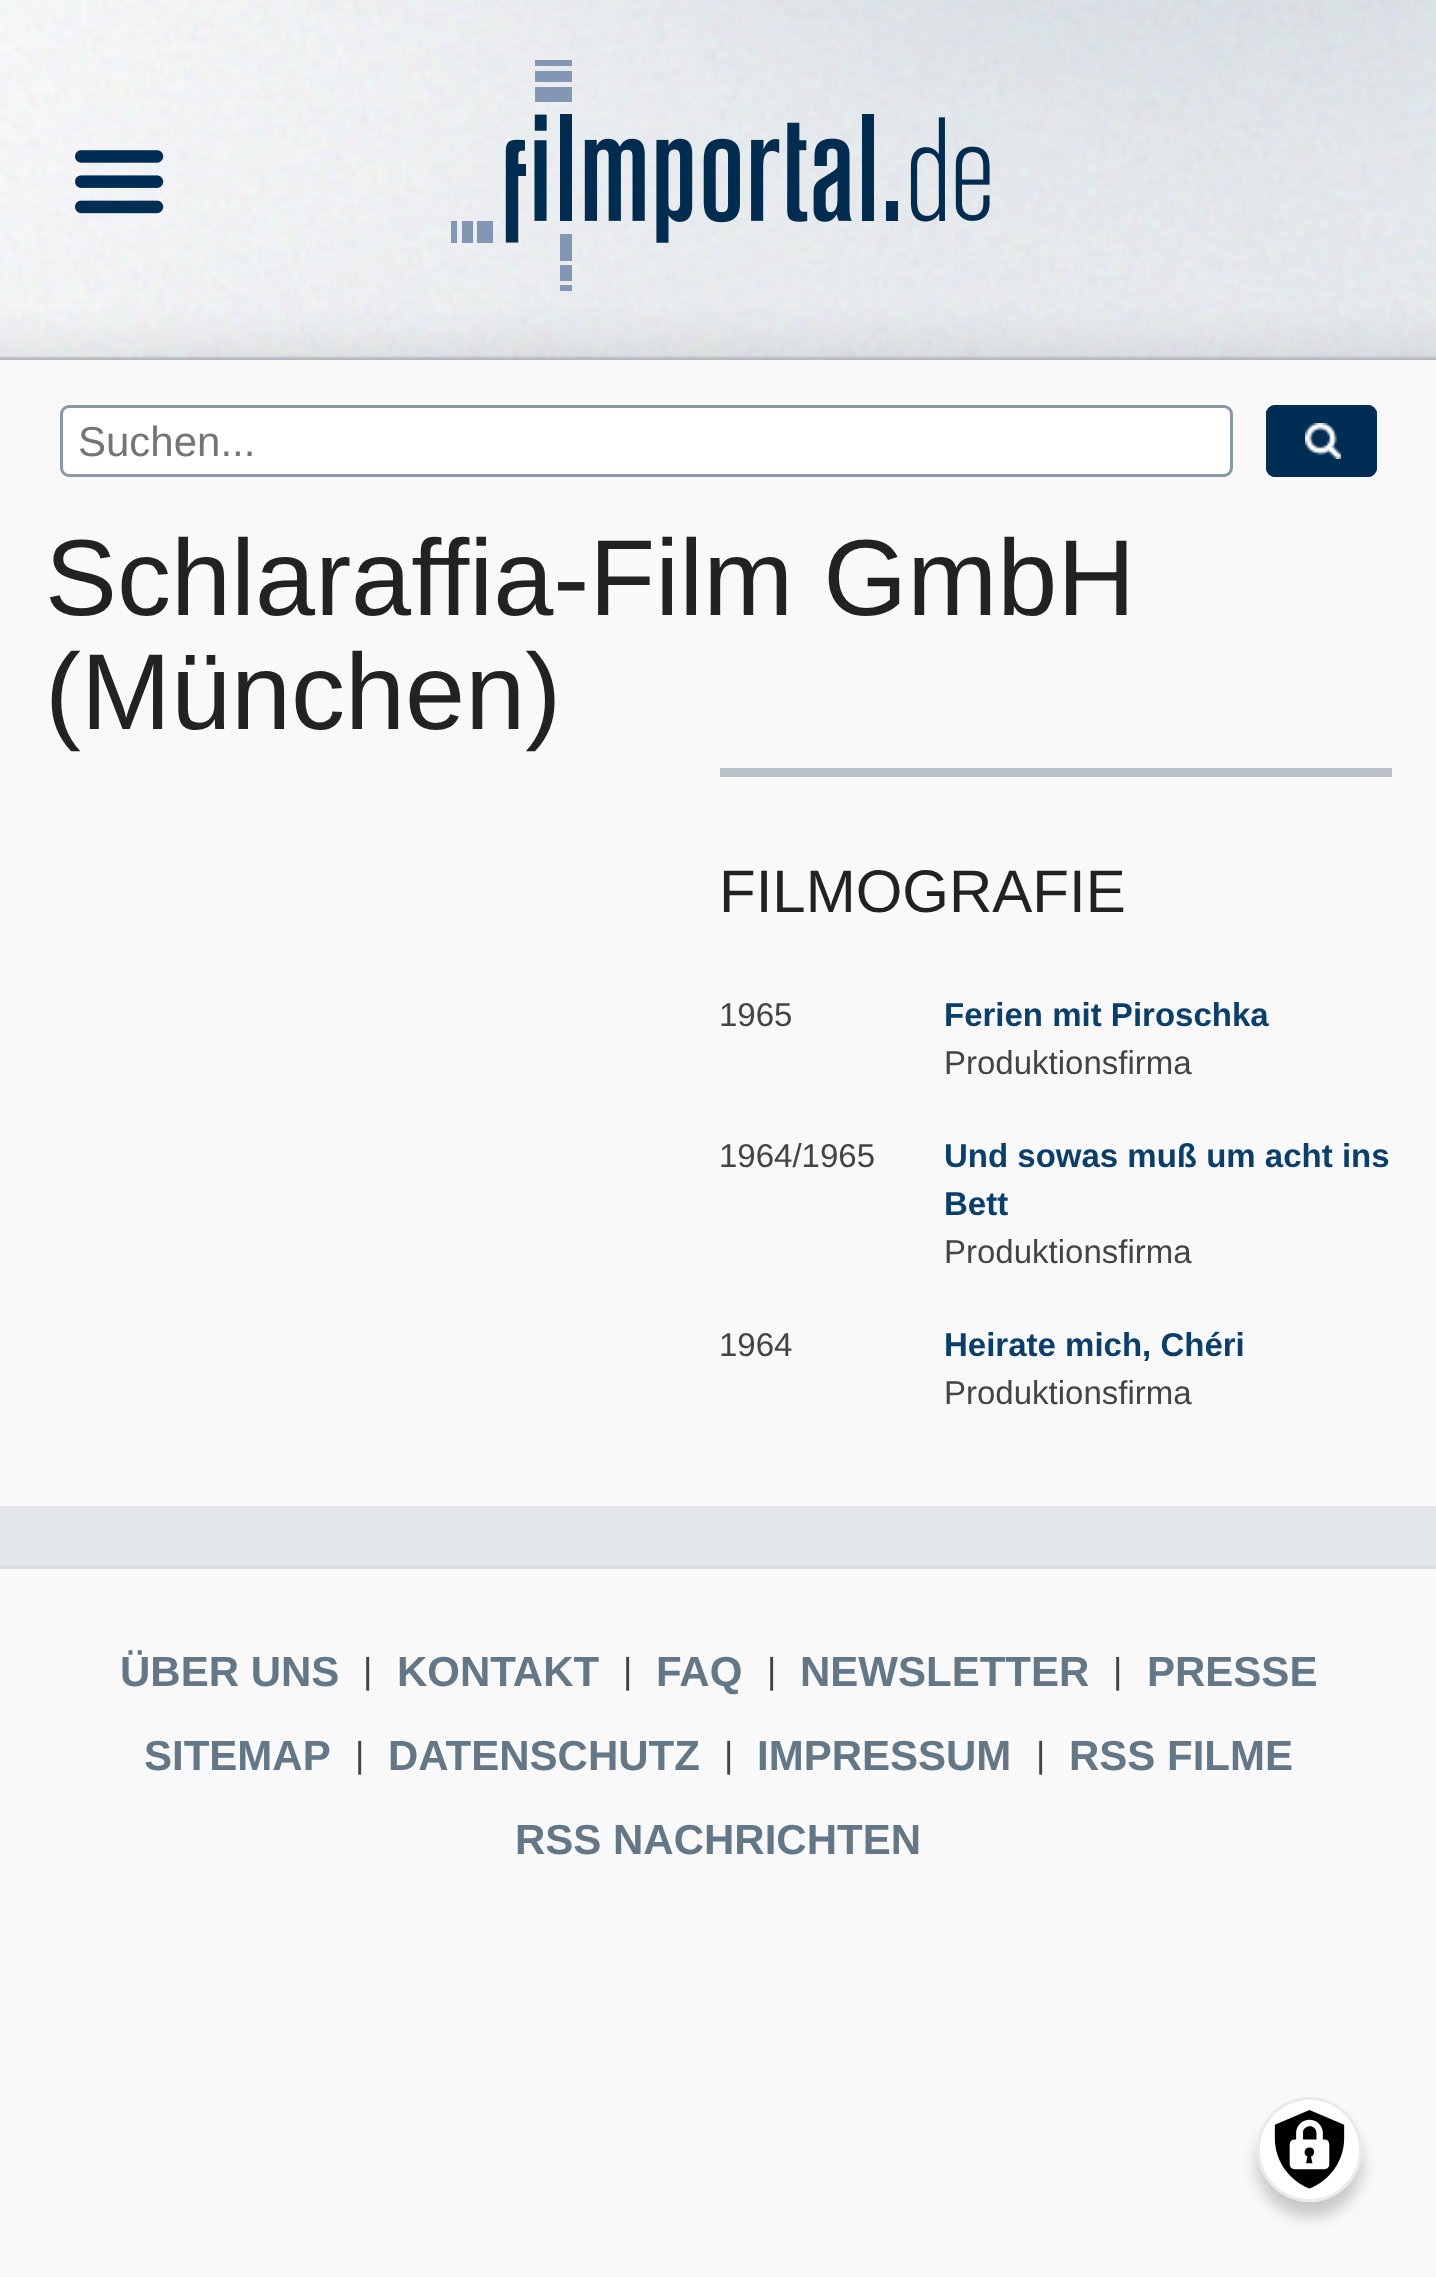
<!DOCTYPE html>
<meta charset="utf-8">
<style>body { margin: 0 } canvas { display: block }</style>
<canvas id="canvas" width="1436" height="2277"></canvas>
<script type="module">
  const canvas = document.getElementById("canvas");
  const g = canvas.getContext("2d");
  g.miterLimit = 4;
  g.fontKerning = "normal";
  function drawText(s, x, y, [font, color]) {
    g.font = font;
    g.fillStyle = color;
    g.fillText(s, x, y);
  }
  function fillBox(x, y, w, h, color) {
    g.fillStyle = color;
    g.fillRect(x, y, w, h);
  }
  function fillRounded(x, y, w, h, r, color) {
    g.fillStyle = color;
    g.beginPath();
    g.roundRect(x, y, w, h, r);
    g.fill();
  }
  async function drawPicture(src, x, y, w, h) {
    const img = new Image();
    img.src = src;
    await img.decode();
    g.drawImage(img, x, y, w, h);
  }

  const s1 = ["42px Liberation Sans", "#757575"];
  const s2 = ["108px Liberation Sans", "#222222"];
  const s3 = ["60px Liberation Sans", "#222222"];
  const s4 = ["33px Liberation Sans", "#444444"];
  const s5 = ["bold 33px Liberation Sans", "#093E6D"];
  const s6 = ["bold 42px Liberation Sans", "#647786"];
  const s7 = ["36px Liberation Sans", "#444444"];

  fillBox(0, 0, 1436, 2277, "#F9F9F9");
  await drawPicture("pic1.png", 0, 0, 1436, 360);
  await drawPicture("pic2.png", 75, 150, 89, 64);
  await drawPicture("pic3.png", 451, 60, 539, 231);
  g.fillStyle = "#FFFFFF";
  g.beginPath();
  g.roundRect(61.5, 406.5, 1170, 69, 7.5);
  g.fill();
  g.strokeStyle = "#8998A6";
  g.lineWidth = 3;
  g.stroke();
  drawText("Suchen...", 78, 456, s1);
  fillRounded(1266, 405, 111, 72, 9, "#002D54");
  await drawPicture("pic4.png", 1305, 423, 36, 36);
  g.beginPath();
  g.roundRect(1267.5, 406.5, 108, 69, 7.5);
  g.strokeStyle = "#002D54";
  g.stroke();
  drawText("Schlaraffia-Film GmbH", 45, 615, s2);
  drawText("(München)", 45, 729, s2);
  fillBox(720, 768, 672, 9, "#B9C0C7");
  drawText("FILMOGRAFIE", 719, 912, s3);
  drawText("1965", 719, 1026, s4);
  drawText("Ferien mit Piroschka", 944, 1026, s5);
  drawText("Produktionsfirma", 944, 1074, s4);
  drawText("1964/1965", 719, 1167, s4);
  drawText("Und sowas muß um acht ins", 944, 1167, s5);
  drawText("Bett", 944, 1215, s5);
  drawText("Produktionsfirma", 944, 1263, s4);
  drawText("1964", 719, 1356, s4);
  drawText("Heirate mich, Chéri", 944, 1356, s5);
  drawText("Produktionsfirma", 944, 1404, s4);
  fillBox(0, 1506, 1436, 60, "#E2E6E9");
  fillBox(0, 1566, 1436, 3, "#D9DCE0");
  drawText("ÜBER UNS", 120, 1686, s6);
  drawText("|", 363, 1683, s7);
  drawText("KONTAKT", 397, 1686, s6);
  drawText("|", 623, 1683, s7);
  drawText("FAQ", 656, 1686, s6);
  drawText("|", 767, 1683, s7);
  drawText("NEWSLETTER", 800, 1686, s6);
  drawText("|", 1113, 1683, s7);
  drawText("PRESSE", 1147, 1686, s6);
  drawText("SITEMAP", 144, 1770, s6);
  drawText("|", 355, 1767, s7);
  drawText("DATENSCHUTZ", 388, 1770, s6);
  drawText("|", 724, 1767, s7);
  drawText("IMPRESSUM", 757, 1770, s6);
  drawText("|", 1036, 1767, s7);
  drawText("RSS FILME", 1069, 1770, s6);
  drawText("RSS NACHRICHTEN", 515, 1854, s6);
  g.fillStyle = "rgba(0, 0, 0, 0.2)";
  g.filter = "blur(7.5px)";
  g.beginPath();
  g.roundRect(1257, 2112, 105, 105, 52.5);
  g.fill();
  g.filter = "none";
  g.fillStyle = "#FFFFFF";
  g.beginPath();
  g.arc(1309.5, 2149.5, 52.5, 0, Math.PI * 2);
  g.fill();
  await drawPicture("pic5.png", 1274, 2110, 71, 79);
  g.beginPath();
  g.arc(1309.5, 2149.5, 51, 0, Math.PI * 2);
  g.strokeStyle = "#EAEAEA";
  g.stroke();
</script>
